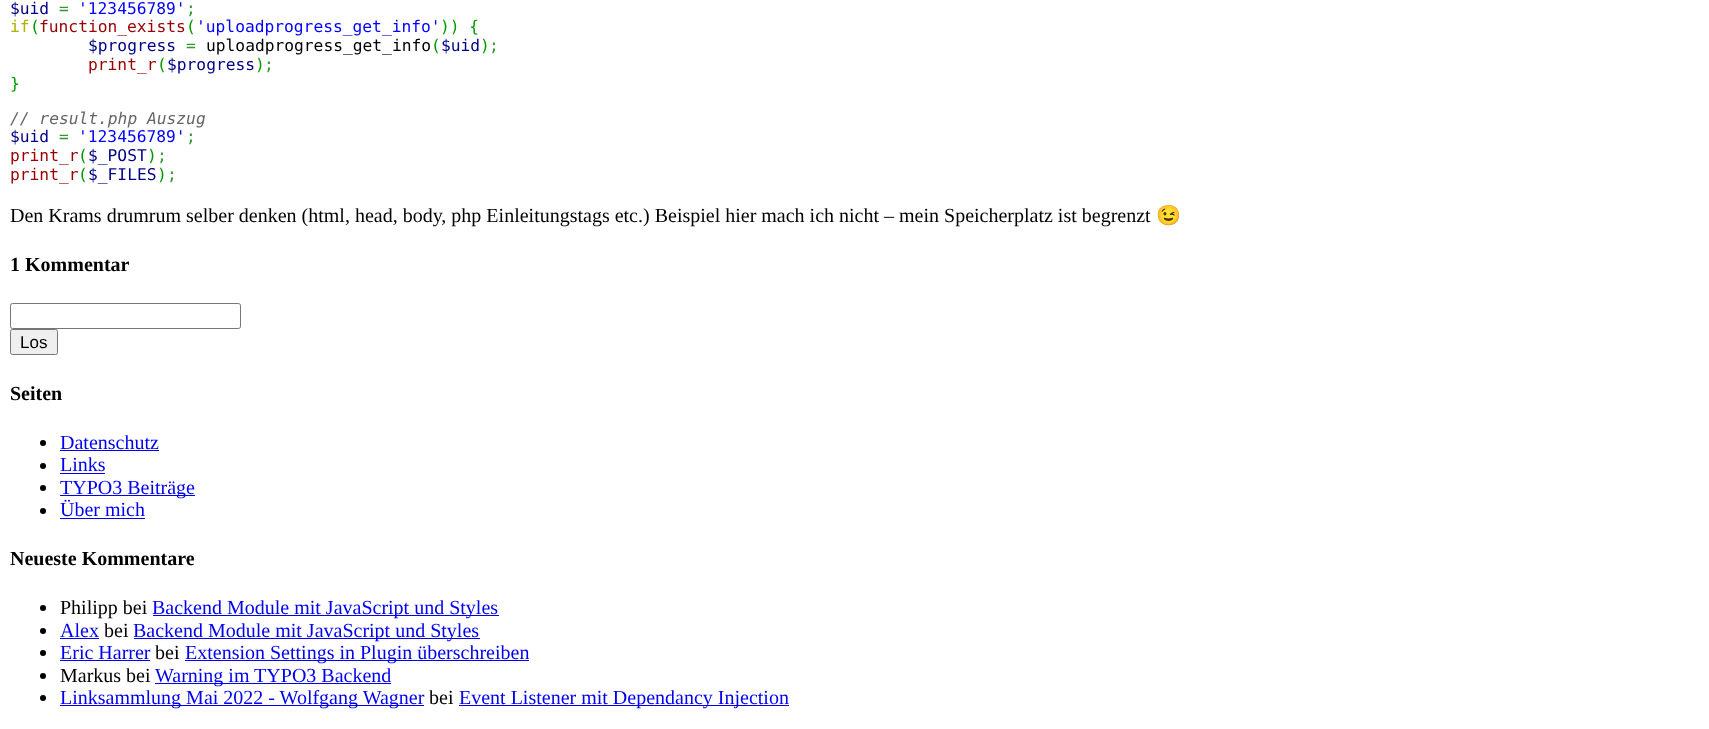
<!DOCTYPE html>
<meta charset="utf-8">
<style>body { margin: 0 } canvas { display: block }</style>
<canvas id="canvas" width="1709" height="729"></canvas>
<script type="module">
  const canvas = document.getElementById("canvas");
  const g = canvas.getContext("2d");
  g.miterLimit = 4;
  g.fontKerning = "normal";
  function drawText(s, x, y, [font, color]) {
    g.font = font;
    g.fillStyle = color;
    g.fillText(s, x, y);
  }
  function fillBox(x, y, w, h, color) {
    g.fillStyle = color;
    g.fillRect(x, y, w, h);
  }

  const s1 = ["16.25px DejaVu Sans Mono", "#000088"];
  const s2 = ["16.25px DejaVu Sans Mono", "#339933"];
  const s3 = ["16.25px DejaVu Sans Mono", "#0000FF"];
  const s4 = ["16.25px DejaVu Sans Mono", "#B1B100"];
  const s5 = ["16.25px DejaVu Sans Mono", "#009900"];
  const s6 = ["16.25px DejaVu Sans Mono", "#990000"];
  const s7 = ["16.25px DejaVu Sans Mono", "#000000"];
  const s8 = ["italic 16.25px DejaVu Sans Mono", "#666666"];
  const s9 = ["20px Liberation Serif", "#000000"];
  const s10 = ["20px Noto Color Emoji", "#000000"];
  const s11 = ["bold 20px Liberation Serif", "#000000"];
  const s12 = ["17px Liberation Sans", "#000000"];
  const s13 = ["20px Liberation Serif", "#0000EE"];

  fillBox(0, 0, 1709, 729, "#FFFFFF");
  drawText("$uid", 10, 14, s1);
  drawText("=", 59, 14, s2);
  drawText("'123456789'", 78, 14, s3);
  drawText(";", 186, 14, s2);
  drawText("if", 10, 32, s4);
  drawText("(", 30, 32, s5);
  drawText("function_exists", 39, 32, s6);
  drawText("(", 186, 32, s5);
  drawText("'uploadprogress_get_info'", 196, 32, s3);
  drawText(")) {", 440, 32, s5);
  drawText("$progress", 88, 51, s1);
  drawText("=", 186, 51, s2);
  drawText("uploadprogress_get_info", 206, 51, s7);
  drawText("(", 431, 51, s5);
  drawText("$uid", 441, 51, s1);
  drawText(")", 480, 51, s5);
  drawText(";", 489, 51, s2);
  drawText("print_r", 88, 70, s6);
  drawText("(", 157, 70, s5);
  drawText("$progress", 167, 70, s1);
  drawText(")", 255, 70, s5);
  drawText(";", 264, 70, s2);
  drawText("}", 10, 89, s5);
  drawText("// result.php Auszug", 10, 124, s8);
  drawText("$uid", 10, 142, s1);
  drawText("=", 59, 142, s2);
  drawText("'123456789'", 78, 142, s3);
  drawText(";", 186, 142, s2);
  drawText("print_r", 10, 161, s6);
  drawText("(", 78, 161, s5);
  drawText("$_POST", 88, 161, s1);
  drawText(")", 147, 161, s5);
  drawText(";", 157, 161, s2);
  drawText("print_r", 10, 180, s6);
  drawText("(", 78, 180, s5);
  drawText("$_FILES", 88, 180, s1);
  drawText(")", 157, 180, s5);
  drawText(";", 167, 180, s2);
  drawText("Den Krams drumrum selber denken (html, head, body, php Einleitungstags etc.) Beispiel hier mach ich nicht – mein Speicherplatz ist begrenzt", 10, 222, s9);
  drawText("😉", 1156, 222, s10);
  drawText("1 Kommentar", 10, 271, s11);
  g.beginPath();
  g.roundRect(10.5, 303.5, 230, 25, 2);
  g.strokeStyle = "#767676";
  g.stroke();
  g.fillStyle = "#EFEFEF";
  g.beginPath();
  g.roundRect(10.5, 329.5, 47, 25, 2);
  g.fill();
  g.stroke();
  drawText("Los", 20, 348, s12);
  drawText("Seiten", 10, 400, s11);
  g.beginPath();
  g.arc(43, 443, 3, 0, Math.PI * 2);
  g.fill();
  drawText("Datenschutz", 60, 449, s13);
  fillBox(60, 450, 99, 1, "#0000EE");
  g.fillStyle = "#000000";
  g.beginPath();
  g.arc(43, 466, 3, 0, Math.PI * 2);
  g.fill();
  drawText("Links", 60, 471, s13);
  fillBox(60, 473, 45, 1, "#0000EE");
  g.fillStyle = "#000000";
  g.beginPath();
  g.arc(43, 488, 3, 0, Math.PI * 2);
  g.fill();
  fillBox(60, 495, 135, 1, "#0000EE");
  drawText("TYPO3 Beiträge", 60, 494, s13);
  g.fillStyle = "#000000";
  g.beginPath();
  g.arc(43, 511, 3, 0, Math.PI * 2);
  g.fill();
  drawText("Über mich", 60, 516, s13);
  fillBox(60, 518, 85, 1, "#0000EE");
  drawText("Neueste Kommentare", 10, 565, s11);
  g.beginPath();
  g.arc(43, 608, 3, 0, Math.PI * 2);
  g.fill();
  drawText("Philipp bei", 60, 614, s9);
  fillBox(153, 615, 346, 1, "#0000EE");
  drawText("Backend Module mit JavaScript und Styles", 152, 614, s13);
  g.fillStyle = "#000000";
  g.beginPath();
  g.arc(43, 631, 3, 0, Math.PI * 2);
  g.fill();
  drawText("Alex", 60, 637, s13);
  fillBox(60, 638, 39, 1, "#0000EE");
  drawText("bei", 104, 637, s9);
  fillBox(134, 638, 346, 1, "#0000EE");
  drawText("Backend Module mit JavaScript und Styles", 133, 637, s13);
  g.fillStyle = "#000000";
  g.beginPath();
  g.arc(43, 653, 3, 0, Math.PI * 2);
  g.fill();
  drawText("Eric Harrer", 60, 659, s13);
  fillBox(60, 660, 90, 1, "#0000EE");
  drawText("bei", 155, 659, s9);
  fillBox(185, 660, 344, 1, "#0000EE");
  drawText("Extension Settings in Plugin überschreiben", 185, 659, s13);
  g.fillStyle = "#000000";
  g.beginPath();
  g.arc(43, 676, 3, 0, Math.PI * 2);
  g.fill();
  drawText("Markus bei", 60, 682, s9);
  fillBox(155, 683, 236, 1, "#0000EE");
  drawText("Warning im TYPO3 Backend", 155, 682, s13);
  g.fillStyle = "#000000";
  g.beginPath();
  g.arc(43, 698, 3, 0, Math.PI * 2);
  g.fill();
  fillBox(60, 705, 364, 1, "#0000EE");
  drawText("Linksammlung Mai 2022 - Wolfgang Wagner", 60, 704, s13);
  drawText("bei", 429, 704, s9);
  fillBox(459, 705, 330, 1, "#0000EE");
  drawText("Event Listener mit Dependancy Injection", 459, 704, s13);
</script>
